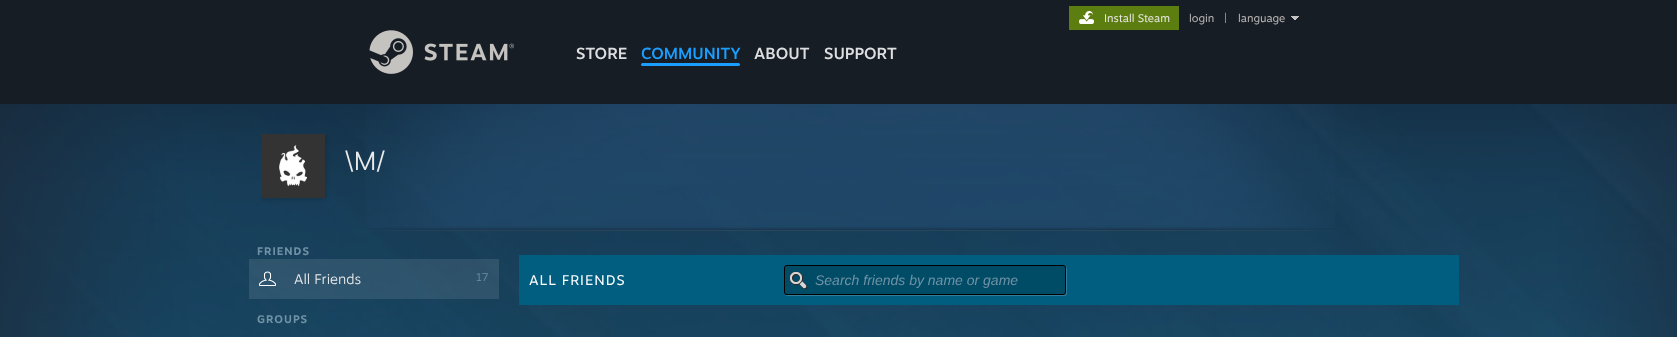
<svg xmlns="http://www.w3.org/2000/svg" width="1677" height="337">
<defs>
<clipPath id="clip1"><rect x="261" y="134" width="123" height="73"/></clipPath>
</defs>
<rect width="100%" height="100%" fill="#fff"/>
<image x="0" y="104" width="1677" height="233" href="media/1.png"/>
<rect width="1677" height="104" fill="#171d25"/>
<rect x="1069" y="6" width="110" height="24" fill="#5c7e10"/>
<image x="1079" y="11" width="15" height="13" href="media/2.png"/>
<text x="1104" y="22" style="font-family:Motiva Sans;font-size:11px;fill:#e5e4dc">Install Steam</text>
<text x="1189" y="22" style="font-family:Motiva Sans;font-size:11px;fill:#b8b6b4">login</text>
<text x="1224" y="22" style="font-family:Motiva Sans;font-size:11px;fill:#b8b6b4">|</text>
<text x="1238" y="22" style="font-family:Motiva Sans;font-size:11px;fill:#b8b6b4">language</text>
<image x="1291" y="16" width="8" height="4" href="media/3.png"/>
<image x="369" y="30" width="145" height="44" href="media/4.png"/>
<text x="576" y="59" style="font-family:Motiva Sans;font-size:16px;font-weight:500;fill:#dcdedf">STORE</text>
<text x="641" y="59" style="font-family:Motiva Sans;font-size:16px;font-weight:500;fill:#1a9fff">COMMUNITY</text>
<rect x="641" y="63" width="99" height="3" rx="1.5" fill="#1a9fff"/>
<text x="754" y="59" style="font-family:Motiva Sans;font-size:16px;font-weight:500;fill:#dcdedf">ABOUT</text>
<text x="824" y="59" style="font-family:Motiva Sans;font-size:16px;font-weight:500;fill:#dcdedf">SUPPORT</text>
<image x="365" y="104" width="970" height="127" href="media/5.png"/>
<g clip-path="url(#clip1)">
<rect x="261" y="134" width="64" height="64" fill="#00000040" filter="blur(2.5px)"/>
</g>
<image x="261" y="134" width="64" height="64" href="media/6.png"/>
<text x="345" y="170" style="font-family:Motiva Sans;font-size:26px;font-weight:300;fill:#ebebeb">\M/</text>
<text x="257" y="255" style="font-family:Motiva Sans;font-size:11px;font-weight:bold;letter-spacing:1px;fill:#7092a5">FRIENDS</text>
<rect x="249" y="259" width="250" height="40" fill="#ffffff1a"/>
<image x="259" y="271" width="17" height="15" href="media/7.png"/>
<text x="294" y="284" style="font-family:Motiva Sans;font-size:14px;font-weight:300;fill:#ebebeb">All Friends</text>
<text x="476" y="281" style="font-family:Motiva Sans;font-size:11px;font-weight:300;fill:#7092a5">17</text>
<text x="257" y="323" style="font-family:Motiva Sans;font-size:11px;font-weight:bold;letter-spacing:1px;fill:#7092a5">GROUPS</text>
<rect x="519" y="255" width="940" height="50" fill="#015e80"/>
<text x="529" y="285" style="font-family:Motiva Sans;font-size:14px;letter-spacing:1px;fill:#fff">ALL FRIENDS</text>
<path d="M785 295c1 0 2 1 3 1h276c2 0 3-1 3-3v-24c0-1-1-2-1-3v2v24c0 2-1 3-3 3h-276z" fill="#347e99"/>
<rect x="784" y="265" width="282" height="30" rx="3" fill="#00000033"/>
<image x="790" y="272" width="17" height="17" href="media/8.png"/>
<rect x="784.5" y="265.5" width="281" height="29" rx="2.5" fill="none" stroke="#000"/>
<text x="815" y="285" style="font-family:Liberation Sans;font-size:14px;font-style:italic;fill:#7092a5">Search friends by name or game</text>
</svg>
